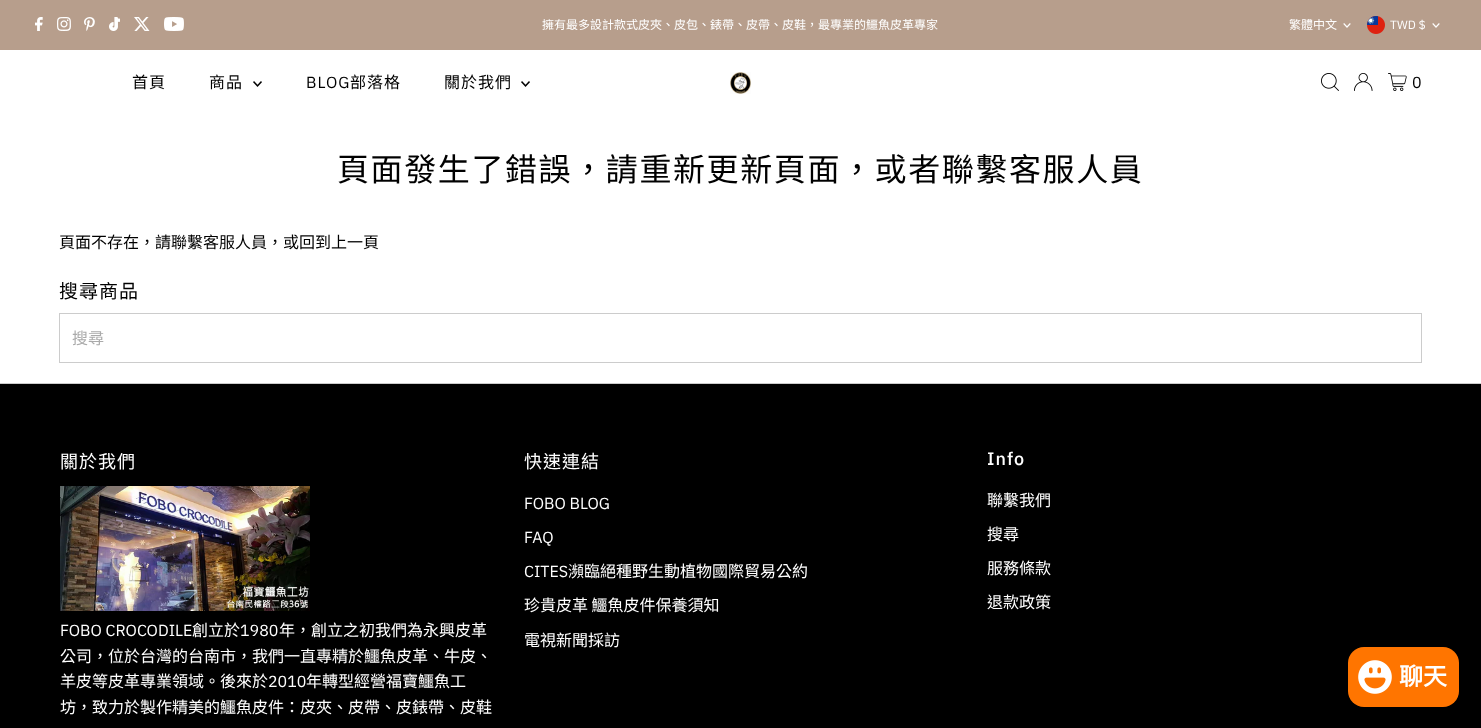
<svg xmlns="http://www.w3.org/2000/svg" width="1481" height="728">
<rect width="100%" height="100%" fill="#fff"/>
<rect width="1481" height="50" fill="#b79e8c"/>
<image x="35" y="17" width="8" height="14" href="media/1.png"/>
<image x="57" y="17" width="14" height="14" href="media/2.png"/>
<image x="84" y="17" width="11" height="14" href="media/3.png"/>
<image x="109" y="17" width="11" height="14" href="media/4.png"/>
<image x="134" y="17" width="16" height="14" href="media/5.png"/>
<image x="164" y="17" width="20" height="14" href="media/6.png"/>
<text x="542" y="29" style="font-family:Noto Sans CJK TC;font-size:12px;fill:#fff">擁有最多設計款式皮夾、皮包、錶帶、皮帶、皮鞋，最專業的鱷魚皮革專家</text>
<text x="1289" y="29" style="font-family:Noto Sans CJK TC;font-size:12px;fill:#fff">繁體中文</text>
<image x="1343" y="23" width="8" height="5" href="media/7.png"/>
<image x="1367" y="16" width="18" height="18" href="media/8.png"/>
<text x="1390" y="29" style="font-family:IBM Plex Sans;font-size:12px;fill:#fff">TWD $</text>
<image x="1432" y="23" width="8" height="5" href="media/7.png"/>
<text x="132" y="88" style="font-family:Noto Sans CJK TC;font-size:16px;letter-spacing:1px;fill:#000">首頁</text>
<text x="209" y="88" style="font-family:Noto Sans CJK TC;font-size:16px;letter-spacing:1px;fill:#000">商品</text>
<image x="253" y="81" width="9" height="6" href="media/9.png"/>
<text x="306" y="88" style="font-family:IBM Plex Sans;font-size:16px;letter-spacing:1px;fill:#000">BLOG</text>
<text x="350" y="88" style="font-family:Noto Sans CJK TC;font-size:16px;letter-spacing:1px;fill:#000">部落格</text>
<text x="444" y="88" style="font-family:Noto Sans CJK TC;font-size:16px;letter-spacing:1px;fill:#000">關於我們</text>
<image x="521" y="81" width="9" height="6" href="media/9.png"/>
<image x="730" y="72" width="21" height="22" href="media/10.png"/>
<image x="1321" y="73" width="18" height="18" href="media/11.png"/>
<image x="1354" y="73" width="19" height="18" href="media/12.png"/>
<image x="1388" y="73" width="19" height="18" href="media/13.png"/>
<text x="1412" y="88" style="font-family:IBM Plex Sans;font-size:16px;fill:#000">0</text>
<text x="337" y="181" style="font-family:Noto Sans CJK TC;font-size:32px;letter-spacing:1.6px;fill:#000">頁面發生了錯誤，請重新更新頁面，或者聯繫客服人員</text>
<text x="59" y="248" style="font-family:Noto Sans CJK TC;font-size:16px;fill:#000">頁面不存在，請聯繫客服人員，或回到上一頁</text>
<text x="59" y="298" style="font-family:Noto Sans CJK TC;font-size:19px;letter-spacing:1px;fill:#000">搜尋商品</text>
<rect x="59.5" y="313.5" width="1362" height="49" fill="none" stroke="#ccc"/>
<text x="72" y="344" style="font-family:Noto Sans CJK TC;font-size:16px;fill:#aaa">搜尋</text>
<rect y="384" width="1481" height="344" fill="#000"/>
<rect y="383" width="1481" height="1" fill="#ccc"/>
<text x="60" y="468" style="font-family:Noto Sans CJK TC;font-size:18px;letter-spacing:1px;fill:#fff">關於我們</text>
<image x="60" y="486" width="250" height="125" href="media/14.png"/>
<text x="60" y="636" style="font-family:IBM Plex Sans;font-size:16px;fill:#fff">FOBO CROCODILE</text>
<text x="192" y="636" style="font-family:Noto Sans CJK TC;font-size:16px;fill:#fff">創立於</text>
<text x="240" y="636" style="font-family:IBM Plex Sans;font-size:16px;fill:#fff">1980</text>
<text x="279" y="636" style="font-family:Noto Sans CJK TC;font-size:16px;fill:#fff">年，創立之初我們為永興皮革</text>
<text x="60" y="662" style="font-family:Noto Sans CJK TC;font-size:16px;fill:#fff">公司，位於台灣的台南市，我們一直專精於鱷魚皮革、牛皮、</text>
<text x="60" y="687" style="font-family:Noto Sans CJK TC;font-size:16px;fill:#fff">羊皮等皮革專業領域。後來於</text>
<text x="268" y="687" style="font-family:IBM Plex Sans;font-size:16px;fill:#fff">2010</text>
<text x="306" y="687" style="font-family:Noto Sans CJK TC;font-size:16px;fill:#fff">年轉型經營福寶鱷魚工</text>
<text x="60" y="713" style="font-family:Noto Sans CJK TC;font-size:16px;fill:#fff">坊，致力於製作精美的鱷魚皮件：皮夾、皮帶、皮錶帶、皮鞋</text>
<text x="524" y="468" style="font-family:Noto Sans CJK TC;font-size:18px;letter-spacing:1px;fill:#fff">快速連結</text>
<text x="524" y="509" style="font-family:IBM Plex Sans;font-size:16px;fill:#fff">FOBO BLOG</text>
<text x="524" y="543" style="font-family:IBM Plex Sans;font-size:16px;fill:#fff">FAQ</text>
<text x="524" y="577" style="font-family:IBM Plex Sans;font-size:16px;fill:#fff">CITES</text>
<text x="568" y="577" style="font-family:Noto Sans CJK TC;font-size:16px;fill:#fff">瀕臨絕種野生動植物國際貿易公約</text>
<text x="524" y="611" style="font-family:Noto Sans CJK TC;font-size:16px;fill:#fff">珍貴皮革 鱷魚皮件保養須知</text>
<text x="524" y="646" style="font-family:Noto Sans CJK TC;font-size:16px;fill:#fff">電視新聞採訪</text>
<text x="987" y="465" style="font-family:IBM Plex Sans;font-size:18px;font-weight:500;letter-spacing:1px;fill:#fff">Info</text>
<text x="987" y="506" style="font-family:Noto Sans CJK TC;font-size:16px;fill:#fff">聯繫我們</text>
<text x="987" y="540" style="font-family:Noto Sans CJK TC;font-size:16px;fill:#fff">搜尋</text>
<text x="987" y="574" style="font-family:Noto Sans CJK TC;font-size:16px;fill:#fff">服務條款</text>
<text x="987" y="608" style="font-family:Noto Sans CJK TC;font-size:16px;fill:#fff">退款政策</text>
<rect x="1348" y="647" width="111" height="60" rx="16" fill="#ff7500"/>
<image x="1358" y="660" width="34" height="34" href="media/15.png"/>
<text x="1399" y="685" style="font-family:Noto Sans CJK TC;font-size:24px;font-weight:bold;fill:#fff">聊天</text>
</svg>
